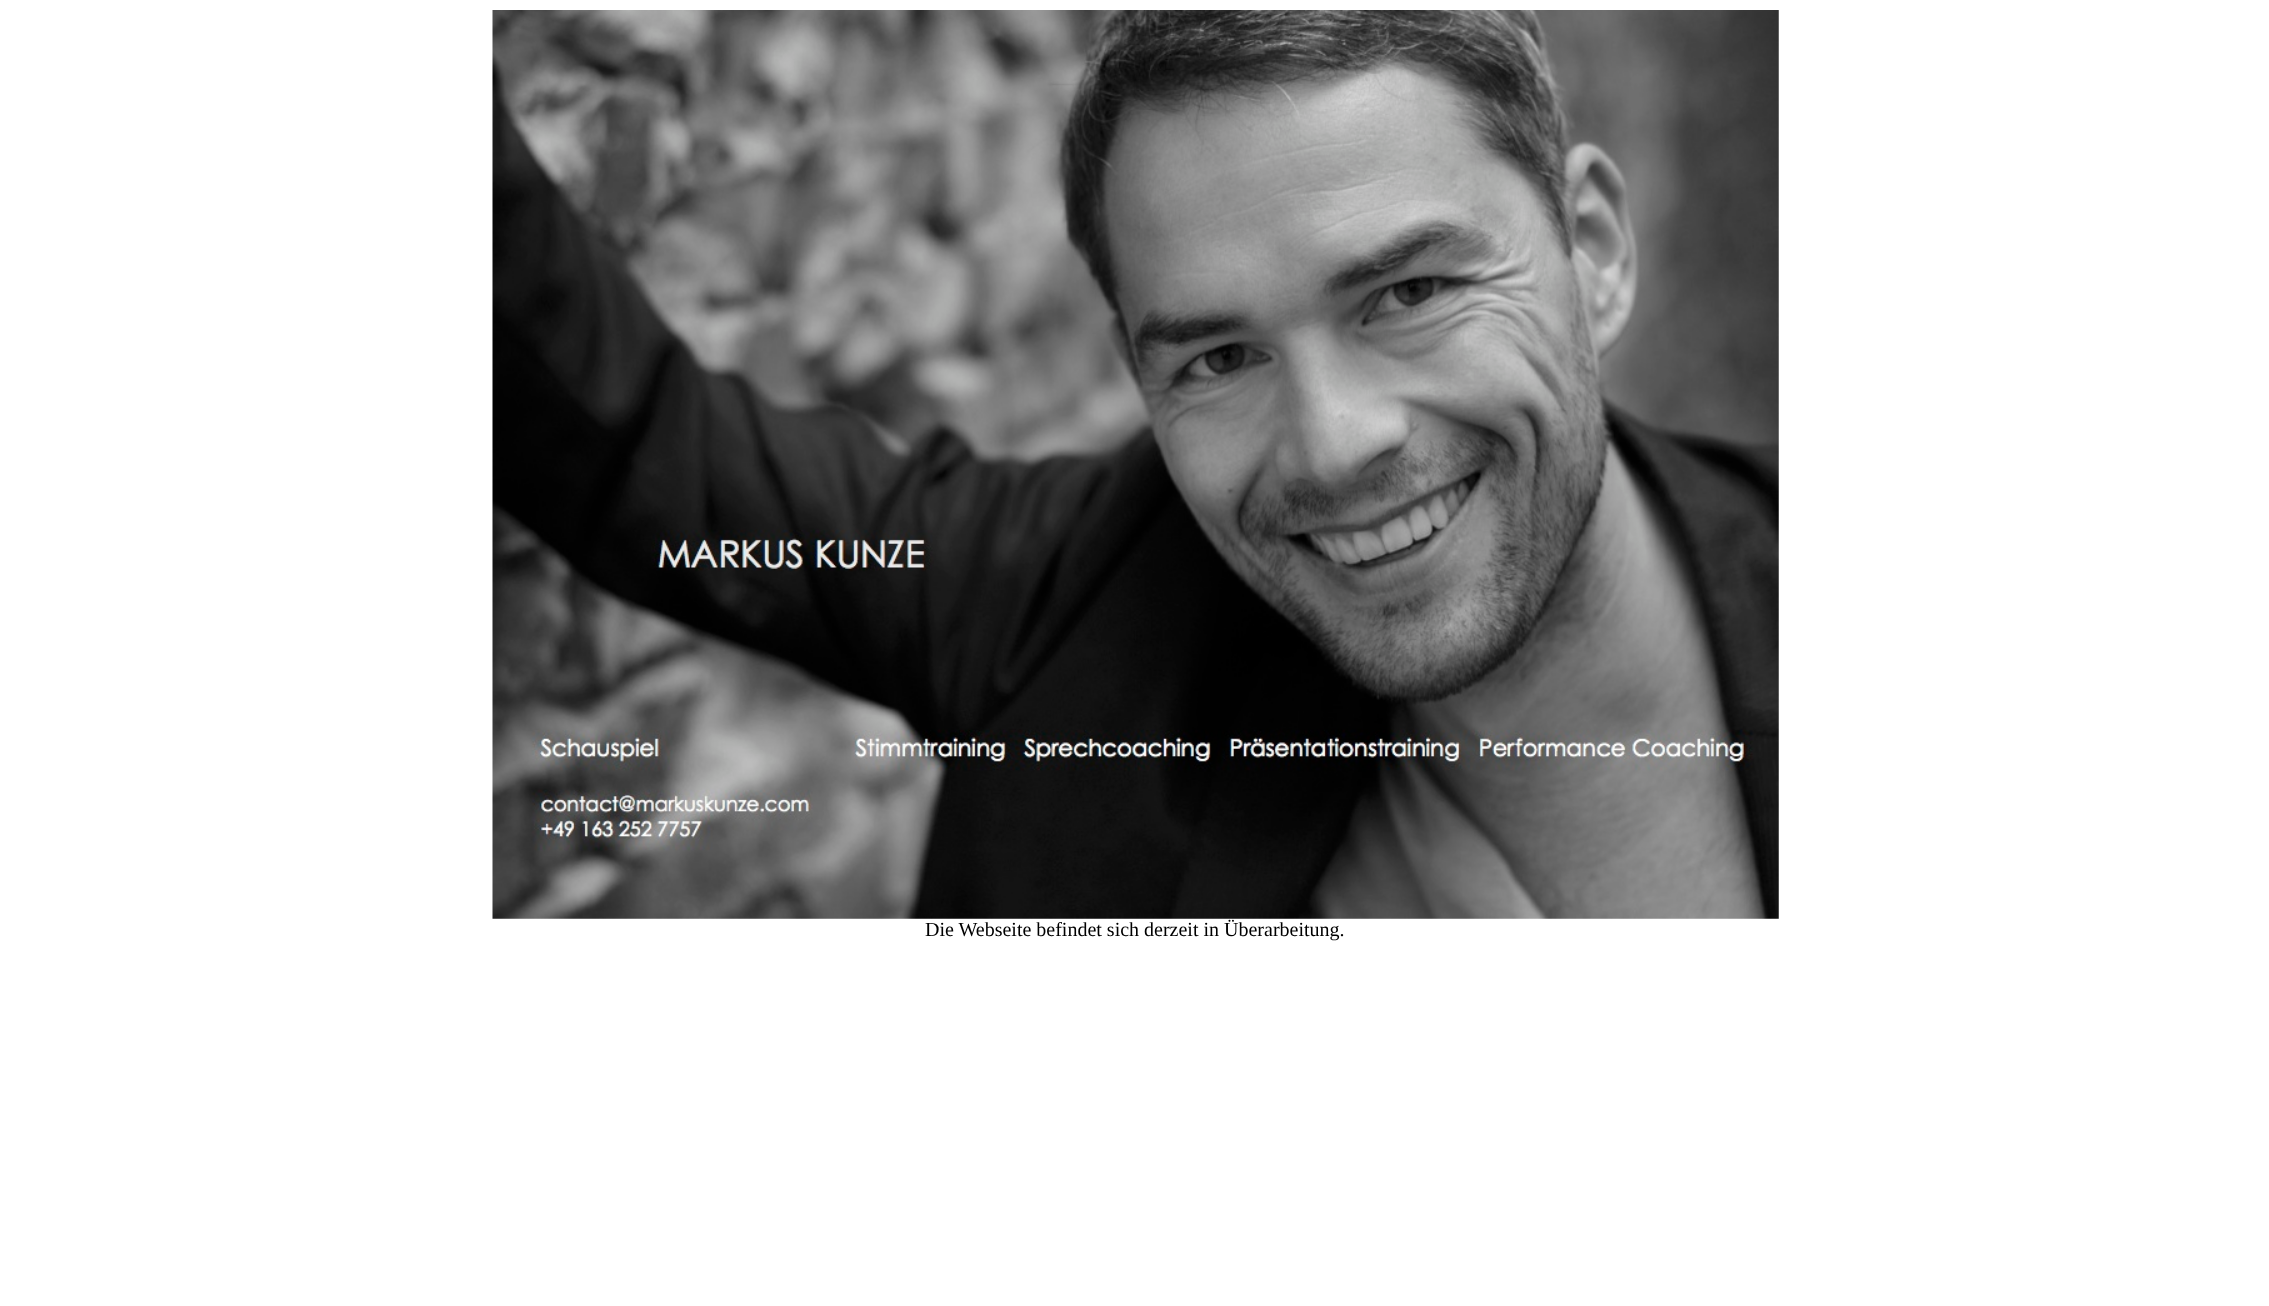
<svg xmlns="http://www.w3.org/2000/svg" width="2269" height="1306">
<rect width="100%" height="100%" fill="#fff"/>
<image x="492" y="10" width="1287" height="909" href="media/1.png"/>
<text x="925" y="936" style="font-family:Liberation Serif;font-size:20px;fill:#000">Die Webseite befindet sich derzeit in Überarbeitung.</text>
</svg>
